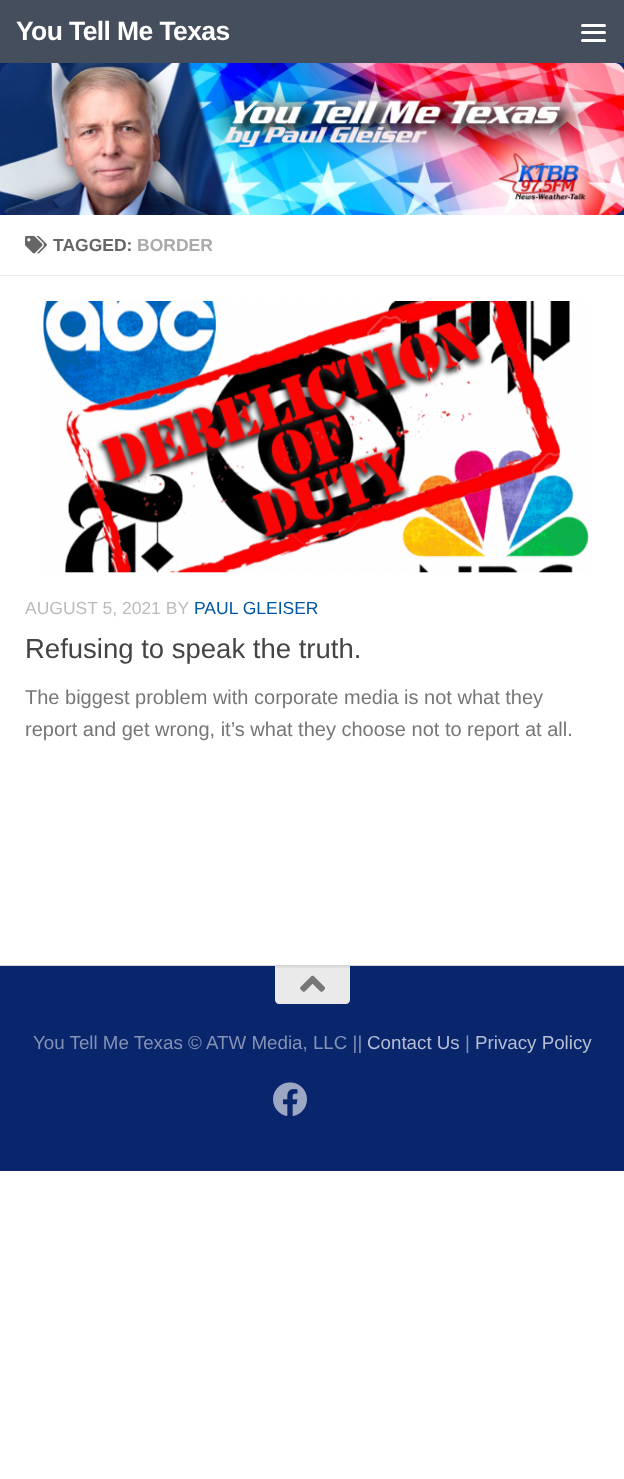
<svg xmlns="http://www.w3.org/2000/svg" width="624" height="1479">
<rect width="100%" height="100%" fill="#fff"/>
<rect y="965" width="624" height="1" fill="#eaeaea"/>
<rect y="216" width="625" height="750" fill="#0000001a" filter="blur(0.5px)"/>
<rect y="63" width="624" height="152" fill="#09256b"/>
<rect width="624" height="63" fill="#454e5c"/>
<text x="16" y="40" style="font-family:Liberation Sans;font-size:26.5px;font-weight:bold;letter-spacing:-0.6px;fill:#fff">You Tell Me Texas</text>
<rect x="581" y="24" width="25" height="3" rx="1.5" fill="#fff"/>
<rect x="581" y="31" width="25" height="3" rx="1.5" fill="#fff"/>
<rect x="581" y="39" width="25" height="3" rx="1.5" fill="#fff"/>
<image x="0" y="63" width="624" height="152" href="media/1.png"/>
<rect y="215" width="624" height="750" fill="#fff"/>
<rect y="275" width="624" height="1" fill="#eee"/>
<image x="25" y="235" width="22" height="19" href="media/2.png"/>
<text x="53" y="251" style="font-family:Liberation Sans;font-size:17.5px;font-weight:bold;fill:#666">TAGGED:</text>
<text x="137" y="251" style="font-family:Liberation Sans;font-size:17.5px;font-weight:bold;fill:#aaa">BORDER</text>
<image x="43" y="301" width="546" height="272" href="media/3.png"/>
<text x="25" y="614" style="font-family:Liberation Sans;font-size:17.5px;fill:#bbb">AUGUST 5, 2021 BY</text>
<text x="194" y="614" style="font-family:Liberation Sans;font-size:17.5px;fill:#0055a5">PAUL GLEISER</text>
<text x="25" y="658" style="font-family:Liberation Sans;font-size:27.5px;fill:#444">Refusing to speak the truth.</text>
<text x="25" y="704" style="font-family:Liberation Sans;font-size:20px;fill:#767676">The biggest problem with corporate media is not what they</text>
<text x="25" y="736" style="font-family:Liberation Sans;font-size:20px;fill:#767676">report and get wrong, it’s what they choose not to report at all.</text>
<rect y="966" width="624" height="205" fill="#09256b"/>
<path d="M275 966h75v34c0 2-2 4-4 4h-67c-2 0-4-2-4-4z" fill="#eaeaea"/>
<rect x="275" y="966" width="75" height="2" fill="#dedede"/>
<image x="300" y="975" width="25" height="17" href="media/4.png"/>
<text x="33" y="1049" style="font-family:Liberation Sans;font-size:18.75px;fill:#8492b5">You Tell Me Texas © ATW Media, LLC ||</text>
<text x="367" y="1049" style="font-family:Liberation Sans;font-size:18.75px;fill:#b5bed3">Contact Us</text>
<text x="465" y="1049" style="font-family:Liberation Sans;font-size:18.75px;fill:#8492b5">|</text>
<text x="475" y="1049" style="font-family:Liberation Sans;font-size:18.75px;fill:#b5bed3">Privacy Policy</text>
<image x="273" y="1082" width="34" height="34" href="media/5.png"/>
</svg>
